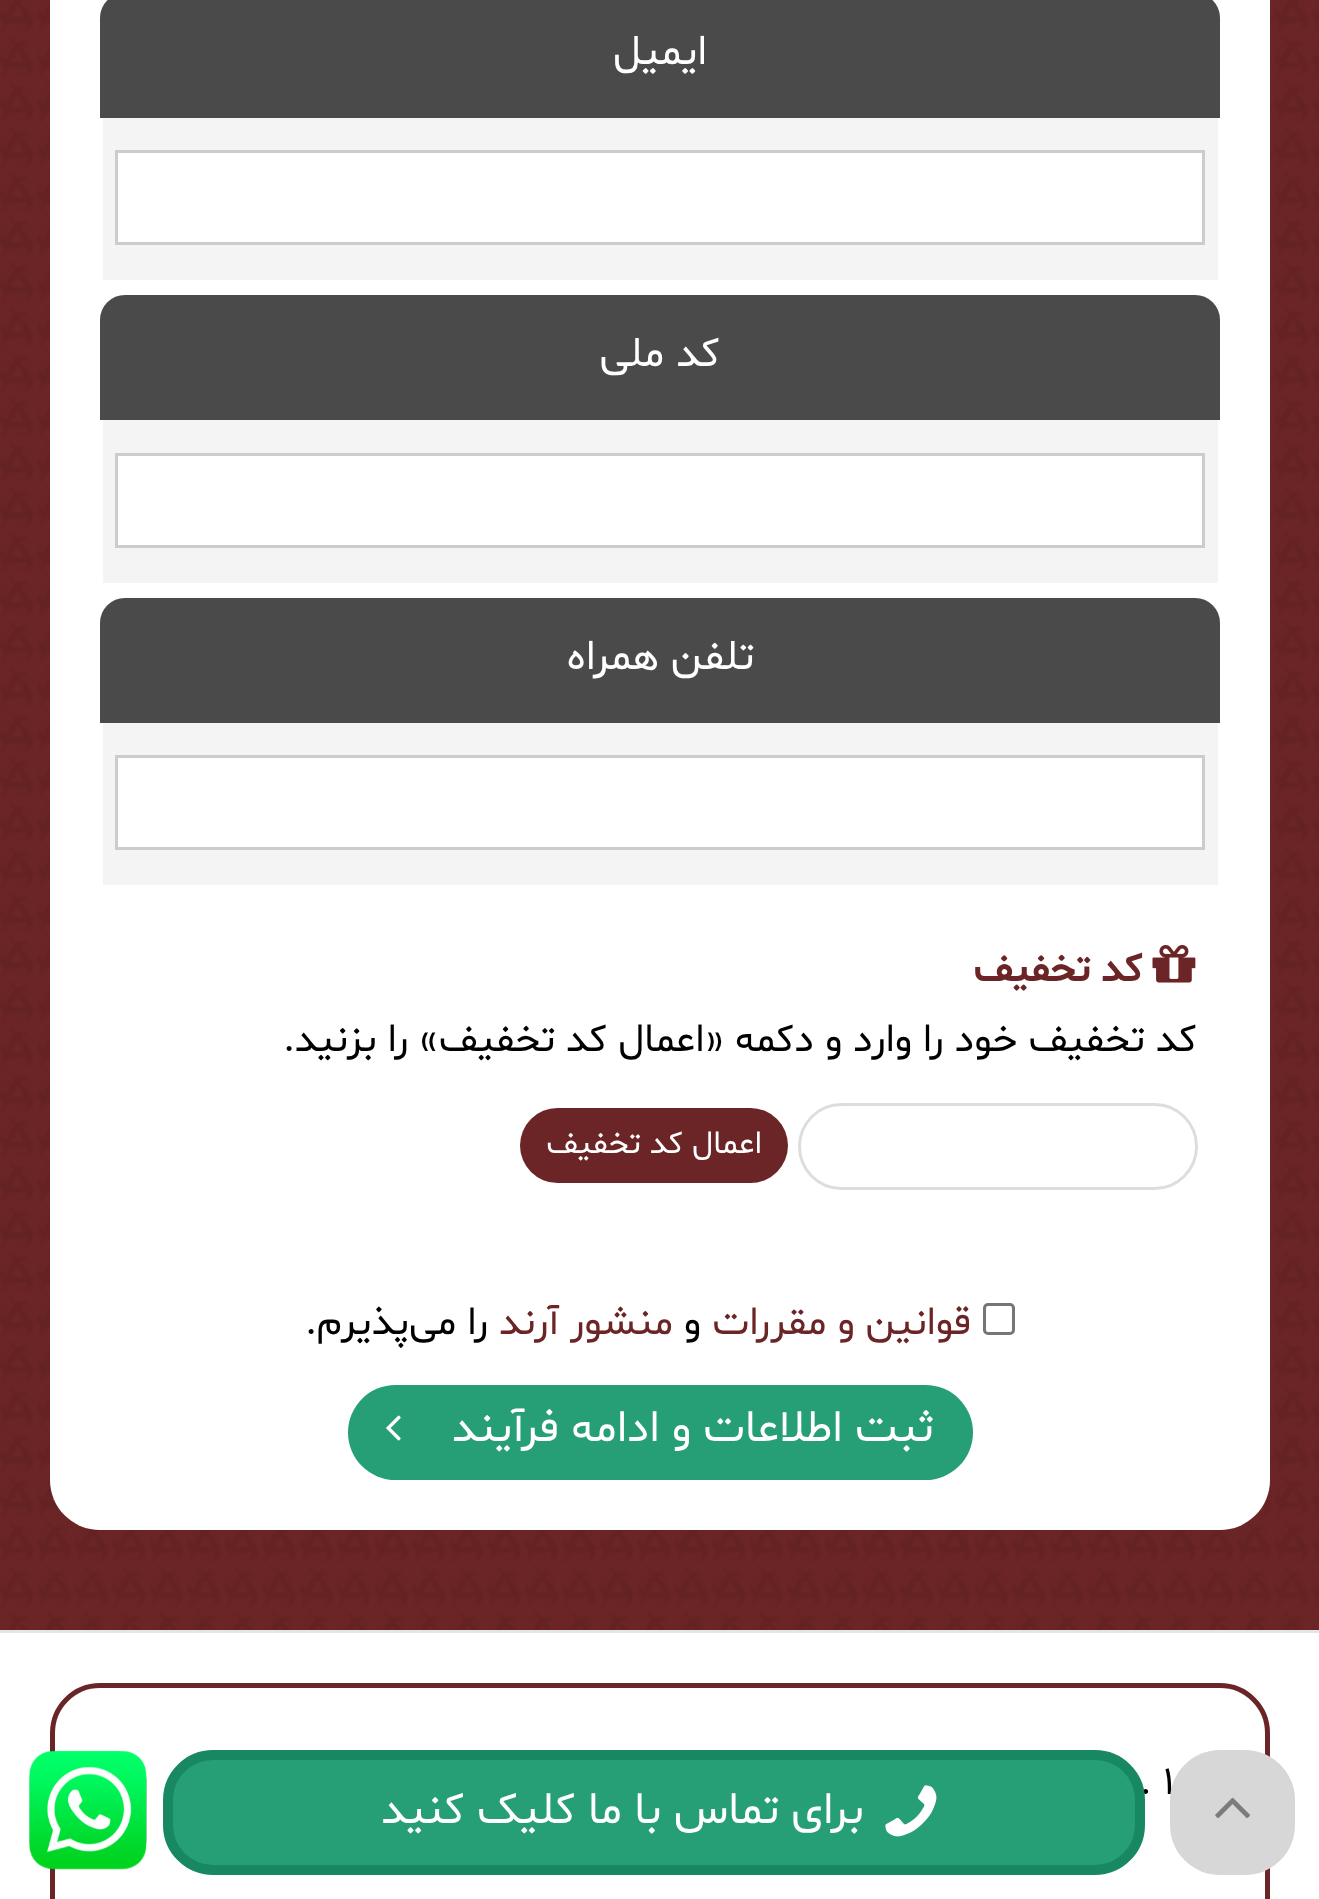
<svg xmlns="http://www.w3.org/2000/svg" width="1319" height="1899">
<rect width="100%" height="100%" fill="#fff"/>
<rect width="1319" height="1630" fill="#6c2526"/>
<image x="0" y="0" width="1319" height="1630" href="media/1.png"/>
<rect y="1630" width="1319" height="3" fill="#e5e5e5"/>
<rect x="50" y="-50" width="1220" height="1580" rx="50" fill="#fff"/>
<path d="M125-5.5h1070c13 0 23.5 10.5 23.5 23.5v98.5h-1117v-98.5c0-13 10.5-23.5 23.5-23.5z" fill="#4b4a4a" stroke="#4b4a4a" stroke-width="3"/>
<text x="707" y="64" style="font-family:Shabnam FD;font-size:42.5px;direction:rtl;fill:#fff">ایمیل</text>
<rect x="103" y="118" width="1115" height="162" fill="#f4f4f4"/>
<rect x="116.5" y="151.5" width="1087" height="92" fill="#fff" stroke="#ccc" stroke-width="3"/>
<path d="M125 296.5h1070c13 0 23.5 10.5 23.5 23.5v98.5h-1117v-98.5c0-13 10.5-23.5 23.5-23.5z" fill="#4b4a4a" stroke="#4b4a4a" stroke-width="3"/>
<text x="720" y="366" style="font-family:Shabnam FD;font-size:42.5px;direction:rtl;fill:#fff">کد ملی</text>
<rect x="103" y="420" width="1115" height="163" fill="#f4f4f4"/>
<rect x="116.5" y="454.5" width="1087" height="92" fill="#fff" stroke="#ccc" stroke-width="3"/>
<path d="M125 599.5h1070c13 0 23.5 10.5 23.5 23.5v98.5h-1117v-98.5c0-13 10.5-23.5 23.5-23.5z" fill="#4b4a4a" stroke="#4b4a4a" stroke-width="3"/>
<text x="754" y="669" style="font-family:Shabnam FD;font-size:42.5px;direction:rtl;fill:#fff">تلفن همراه</text>
<rect x="103" y="723" width="1115" height="162" fill="#f4f4f4"/>
<rect x="116.5" y="756.5" width="1087" height="92" fill="#fff" stroke="#ccc" stroke-width="3"/>
<image x="1152" y="945" width="44" height="38" href="media/2.png"/>
<text x="1143" y="981" style="font-family:Shabnam FD;font-size:40px;font-weight:bold;direction:rtl;fill:#6c2526">کد تخفیف</text>
<text x="1197" y="1051" style="font-family:Shabnam FD;font-size:40px;direction:rtl;fill:#000">کد تخفیف خود را وارد و دکمه «اعمال کد تخفیف» را بزنید.</text>
<rect x="799.5" y="1104.5" width="397" height="84" rx="42" fill="none" stroke="#ddd" stroke-width="3"/>
<rect x="520" y="1108" width="268" height="75" rx="37.5" fill="#6c2526"/>
<text x="762" y="1153" style="font-family:Shabnam FD;font-size:32.5px;direction:rtl;fill:#fff">اعمال کد تخفیف</text>
<rect x="984.5" y="1304.5" width="29" height="29" rx="3.5" fill="none" stroke="#767676" stroke-width="3"/>
<text x="971" y="1334" style="font-family:Shabnam FD;font-size:40px;direction:rtl;fill:#6c2526">قوانین و مقررات</text>
<text x="701" y="1334" style="font-family:Shabnam FD;font-size:40px;direction:rtl;fill:#000">و</text>
<text x="673" y="1334" style="font-family:Shabnam FD;font-size:40px;direction:rtl;fill:#6c2526">منشور آرند</text>
<text x="488" y="1334" style="font-family:Shabnam FD;font-size:40px;direction:rtl;fill:#000">را می‌پذیرم.</text>
<rect x="348" y="1385" width="625" height="95" rx="47.5" fill="#269e76"/>
<text x="934" y="1441" style="font-family:Shabnam FD;font-size:45px;direction:rtl;fill:#fff">ثبت اطلاعات و ادامه فرآیند</text>
<image x="386" y="1415" width="15" height="26" href="media/3.png"/>
<rect x="52.5" y="1685.5" width="1215" height="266" rx="47.5" fill="none" stroke="#6c2526" stroke-width="5"/>
<text x="1140" y="1794" style="font-family:Shabnam FD;font-size:40px;fill:#000">. 1</text>
<rect x="1170" y="1750" width="125" height="125" rx="50" fill="#d7d7d7"/>
<image x="1215" y="1797" width="35" height="21" href="media/4.png"/>
<rect x="168" y="1755" width="972" height="115" rx="45" fill="#269e76" stroke="#188862" stroke-width="10"/>
<image x="885" y="1785" width="52" height="52" href="media/5.png"/>
<text x="864" y="1823" style="font-family:Shabnam FD;font-size:45px;direction:rtl;fill:#fff">برای تماس با ما کلیک کنید</text>
<image x="29" y="1750" width="118" height="120" href="media/6.png"/>
</svg>
